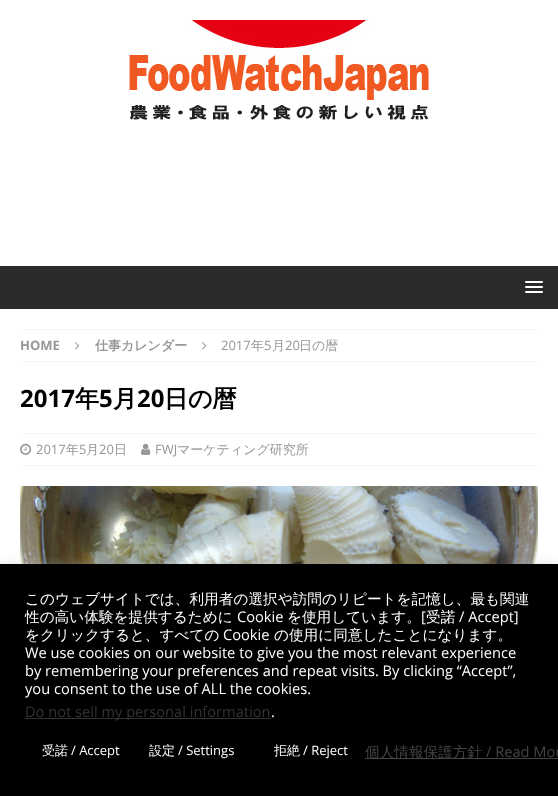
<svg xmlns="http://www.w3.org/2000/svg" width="558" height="796">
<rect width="100%" height="100%" fill="#fff"/>
<image x="129" y="20" width="300" height="100" href="media/1.png"/>
<rect y="266" width="558" height="43" fill="#2a2a2a"/>
<rect x="525" y="281" width="18" height="2" rx="1" fill="#fff"/>
<rect x="525" y="286" width="18" height="2" rx="1" fill="#fff"/>
<rect x="525" y="291" width="18" height="2" rx="1" fill="#fff"/>
<path d="M20 329.5h518" fill="none" stroke="#ebebeb" stroke-dasharray="1 1"/>
<path d="M20 361.5h518" fill="none" stroke="#ebebeb" stroke-dasharray="1 1"/>
<text x="20" y="350" style="font-family:Open Sans;font-size:13px;font-weight:bold;fill:#979797">HOME</text>
<image x="75" y="342" width="5" height="8" href="media/2.png"/>
<text x="95" y="350" style="font-family:WenQuanYi Zen Hei;font-size:13px;font-weight:bold;fill:#979797">仕事カレンダー</text>
<image x="202" y="342" width="5" height="8" href="media/2.png"/>
<text x="221" y="350" style="font-family:Open Sans;font-size:13px;fill:#979797">2017</text>
<text x="251" y="350" style="font-family:WenQuanYi Zen Hei;font-size:13px;font-weight:500;fill:#979797">年</text>
<text x="264" y="350" style="font-family:Open Sans;font-size:13px;fill:#979797">5</text>
<text x="272" y="350" style="font-family:WenQuanYi Zen Hei;font-size:13px;font-weight:500;fill:#979797">月</text>
<text x="285" y="350" style="font-family:Open Sans;font-size:13px;fill:#979797">20</text>
<text x="299" y="350" style="font-family:WenQuanYi Zen Hei;font-size:13px;font-weight:500;fill:#979797">日の暦</text>
<text x="20" y="407" style="font-family:Open Sans;font-size:24px;font-weight:bold;fill:#000">2017</text>
<text x="75" y="407" style="font-family:WenQuanYi Zen Hei;font-size:24px;font-weight:bold;fill:#000">年</text>
<text x="99" y="407" style="font-family:Open Sans;font-size:24px;font-weight:bold;fill:#000">5</text>
<text x="113" y="407" style="font-family:WenQuanYi Zen Hei;font-size:24px;font-weight:bold;fill:#000">月</text>
<text x="137" y="407" style="font-family:Open Sans;font-size:24px;font-weight:bold;fill:#000">20</text>
<text x="164" y="407" style="font-family:WenQuanYi Zen Hei;font-size:24px;font-weight:bold;fill:#000">日の暦</text>
<path d="M20 433.5h518" fill="none" stroke="#ebebeb" stroke-dasharray="1 1"/>
<path d="M20 465.5h518" fill="none" stroke="#ebebeb" stroke-dasharray="1 1"/>
<image x="20" y="443" width="12" height="12" href="media/3.png"/>
<text x="36" y="454" style="font-family:Open Sans;font-size:13px;fill:#979797">2017</text>
<text x="66" y="454" style="font-family:WenQuanYi Zen Hei;font-size:13px;font-weight:500;fill:#979797">年</text>
<text x="79" y="454" style="font-family:Open Sans;font-size:13px;fill:#979797">5</text>
<text x="86" y="454" style="font-family:WenQuanYi Zen Hei;font-size:13px;font-weight:500;fill:#979797">月</text>
<text x="99" y="454" style="font-family:Open Sans;font-size:13px;fill:#979797">20</text>
<text x="114" y="454" style="font-family:WenQuanYi Zen Hei;font-size:13px;font-weight:500;fill:#979797">日</text>
<image x="141" y="443" width="10" height="12" href="media/4.png"/>
<text x="155" y="454" style="font-family:Open Sans;font-size:13px;fill:#979797">FWJ</text>
<text x="177" y="454" style="font-family:WenQuanYi Zen Hei;font-size:13px;font-weight:500;fill:#979797">マーケティング研究所</text>
<image x="20" y="486" width="518" height="78" href="media/5.png"/>
<rect y="563" width="558" height="232" fill="#acabab4d" filter="blur(5px)"/>
<rect y="564" width="558" height="232" fill="#000"/>
<text x="25" y="604" style="font-family:WenQuanYi Zen Hei;font-size:14.65px;font-weight:500;fill:#fff">このウェブサイトでは、利用者の選択や訪問のリピートを記憶し、最も関連</text>
<text x="25" y="622" style="font-family:WenQuanYi Zen Hei;font-size:14.65px;font-weight:500;fill:#fff">性の高い体験を提供するために</text>
<text x="237" y="622" style="font-family:Open Sans;font-size:14.65px;fill:#fff">Cookie</text>
<text x="287" y="622" style="font-family:WenQuanYi Zen Hei;font-size:14.65px;font-weight:500;fill:#fff">を使用しています。</text>
<text x="421" y="622" style="font-family:Open Sans;font-size:14.65px;fill:#fff">[</text>
<text x="426" y="622" style="font-family:WenQuanYi Zen Hei;font-size:14.65px;font-weight:500;fill:#fff">受諾</text>
<text x="459" y="622" style="font-family:Open Sans;font-size:14.65px;fill:#fff">/ Accept]</text>
<text x="25" y="640" style="font-family:WenQuanYi Zen Hei;font-size:14.65px;font-weight:500;fill:#fff">をクリックすると、すべての</text>
<text x="223" y="640" style="font-family:Open Sans;font-size:14.65px;fill:#fff">Cookie</text>
<text x="274" y="640" style="font-family:WenQuanYi Zen Hei;font-size:14.65px;font-weight:500;fill:#fff">の使用に同意したことになります。</text>
<text x="25" y="658" style="font-family:Open Sans;font-size:14.65px;fill:#fff">We use cookies on our website to give you the most relevant experience</text>
<text x="25" y="676" style="font-family:Open Sans;font-size:14.65px;fill:#fff">by remembering your preferences and repeat visits. By clicking “Accept”,</text>
<text x="25" y="694" style="font-family:Open Sans;font-size:14.65px;fill:#fff">you consent to the use of ALL the cookies.</text>
<rect x="25" y="718" width="246" height="1" fill="#333"/>
<text x="25" y="717" style="font-family:Open Sans;font-size:14.65px;fill:#333">Do not sell my personal information</text>
<text x="271" y="717" style="font-family:Open Sans;font-size:14.65px;fill:#fff">.</text>
<text x="42" y="755" style="font-family:WenQuanYi Zen Hei;font-size:13px;font-weight:500;fill:#fff">受諾</text>
<text x="71" y="755" style="font-family:Open Sans;font-size:13px;fill:#fff">/ Accept</text>
<text x="149" y="755" style="font-family:WenQuanYi Zen Hei;font-size:13px;font-weight:500;fill:#fff">設定</text>
<text x="178" y="755" style="font-family:Open Sans;font-size:13px;fill:#fff">/ Settings</text>
<text x="274" y="755" style="font-family:WenQuanYi Zen Hei;font-size:13px;font-weight:500;fill:#fff">拒絶</text>
<text x="303" y="755" style="font-family:Open Sans;font-size:13px;fill:#fff">/ Reject</text>
<rect x="365" y="758" width="193" height="1" fill="#444"/>
<text x="365" y="757" style="font-family:WenQuanYi Zen Hei;font-size:14.65px;font-weight:500;fill:#444">個人情報保護方針</text>
<text x="486" y="757" style="font-family:Open Sans;font-size:14.65px;fill:#444">/ Read Mor</text>
</svg>
